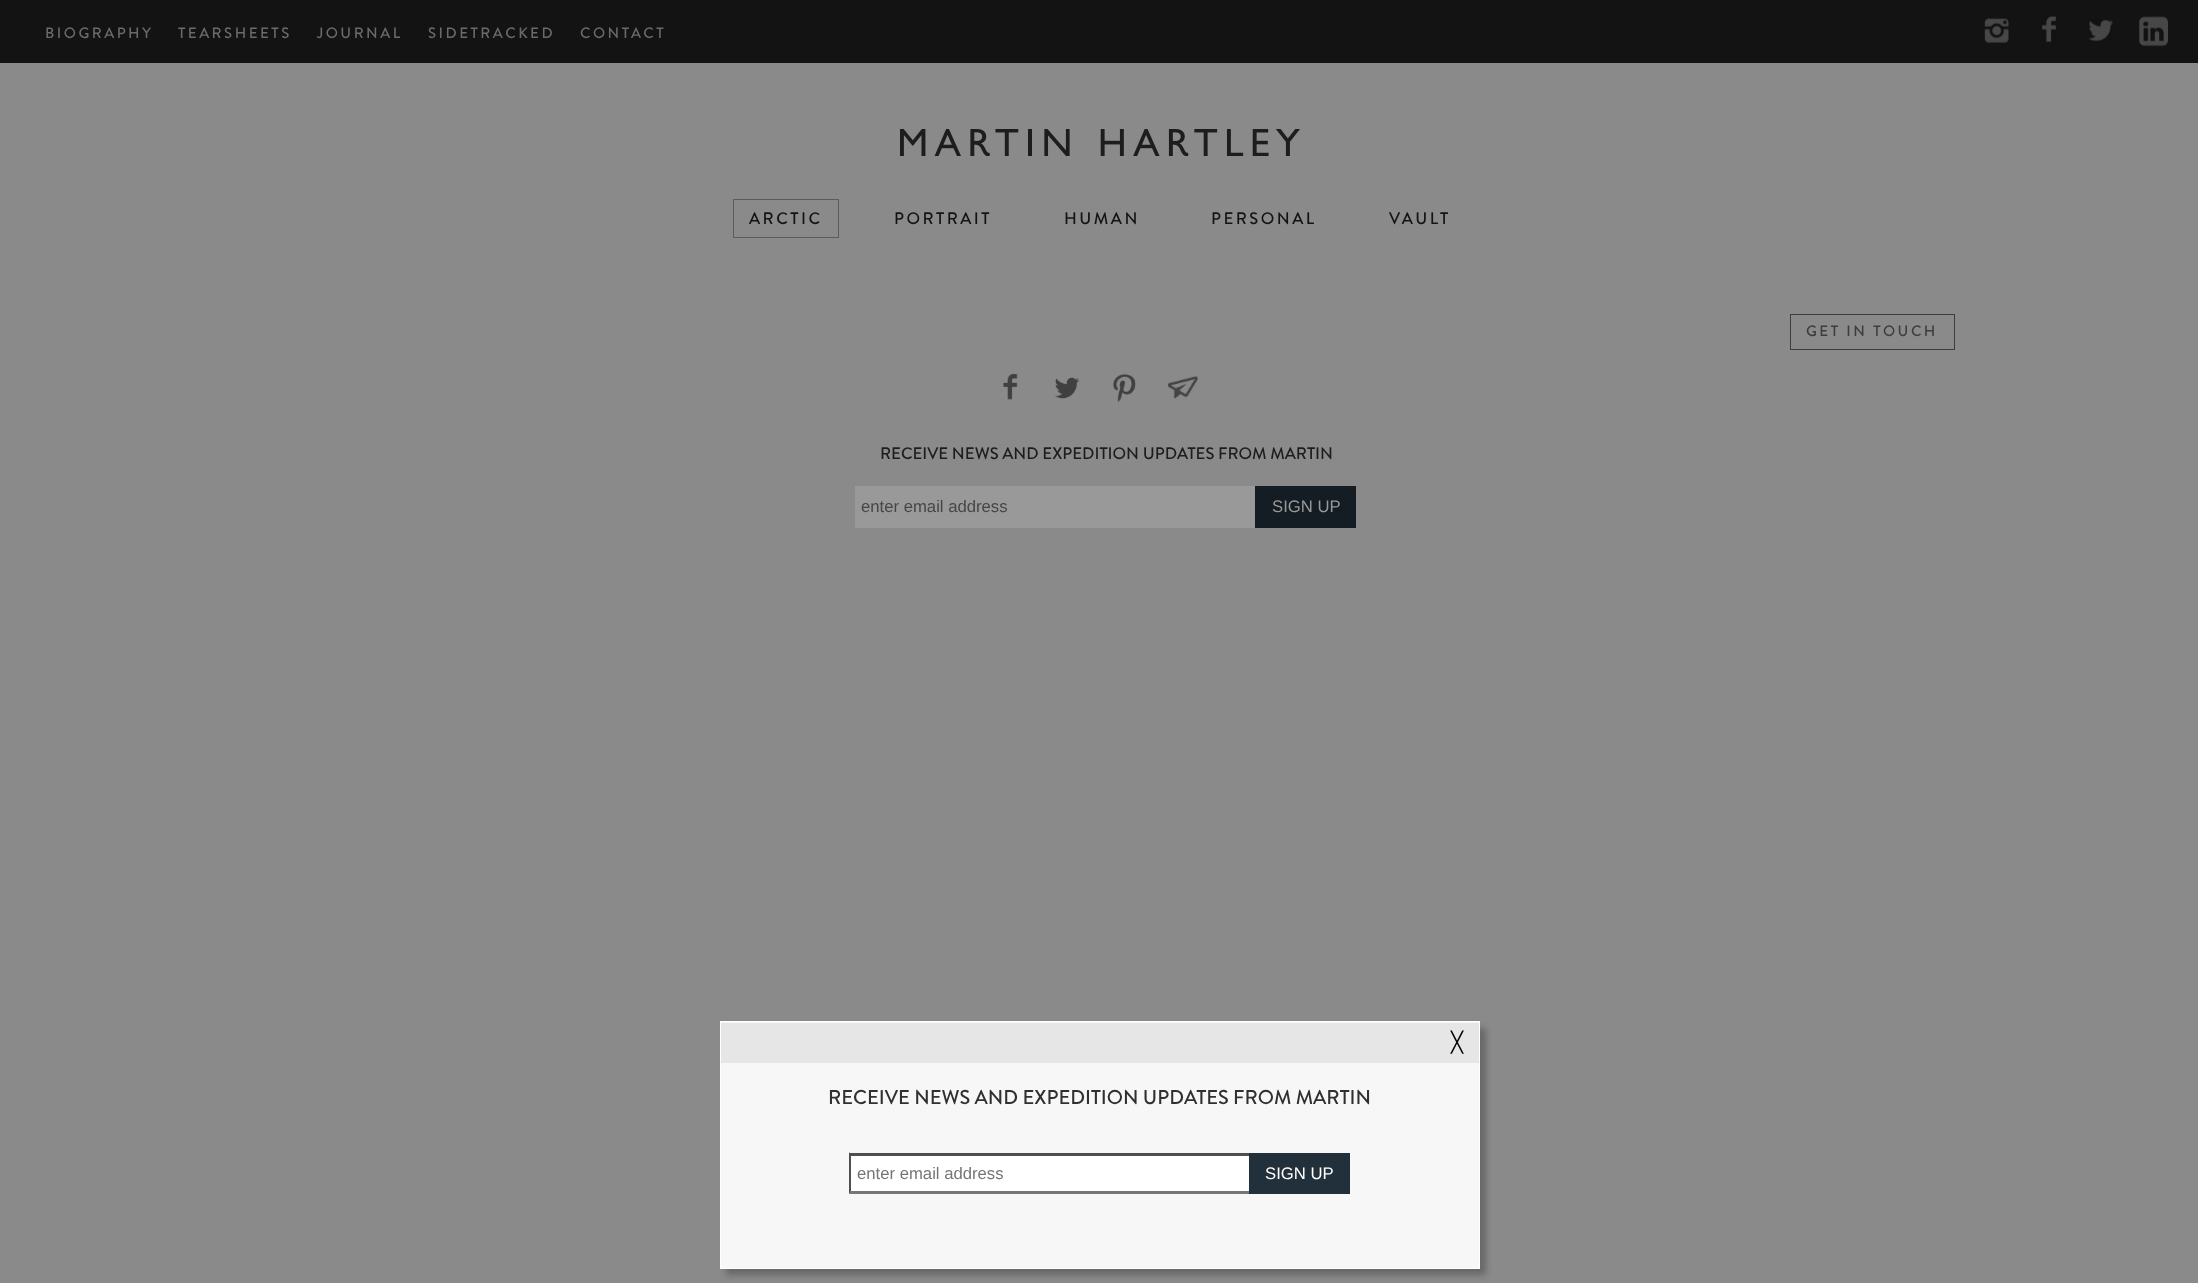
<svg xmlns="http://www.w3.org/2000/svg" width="2198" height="1283">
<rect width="100%" height="100%" fill="#131313"/>
<text x="45" y="38" style="font-family:Brandon Grotesque;font-size:15px;font-weight:500;letter-spacing:2.5px;fill:#6a6a6a">BIOGRAPHY</text>
<text x="178" y="38" style="font-family:Brandon Grotesque;font-size:15px;font-weight:500;letter-spacing:2.5px;fill:#6a6a6a">TEARSHEETS</text>
<text x="317" y="38" style="font-family:Brandon Grotesque;font-size:15px;font-weight:500;letter-spacing:2.5px;fill:#6a6a6a">JOURNAL</text>
<text x="428" y="38" style="font-family:Brandon Grotesque;font-size:15px;font-weight:500;letter-spacing:2.5px;fill:#6a6a6a">SIDETRACKED</text>
<text x="580" y="38" style="font-family:Brandon Grotesque;font-size:15px;font-weight:500;letter-spacing:2.5px;fill:#6a6a6a">CONTACT</text>
<image x="1984" y="18" width="25" height="25" href="media/1.png"/>
<image x="2042" y="16" width="14" height="26" href="media/2.png"/>
<image x="2088" y="19" width="25" height="23" href="media/3.png"/>
<image x="2139" y="16" width="29" height="31" href="media/4.png"/>
<rect y="63" width="2198" height="1220" fill="#8a8a8a"/>
<image x="900" y="129" width="400" height="27" href="media/5.png"/>
<rect x="733.5" y="199.5" width="105" height="38" fill="none" stroke="#5c5c5c"/>
<text x="749" y="224" style="font-family:Brandon Grotesque;font-size:16.7px;font-weight:500;letter-spacing:2.5px;fill:#131313">ARCTIC</text>
<text x="894" y="224" style="font-family:Brandon Grotesque;font-size:16.7px;font-weight:500;letter-spacing:2.5px;fill:#131313">PORTRAIT</text>
<text x="1064" y="224" style="font-family:Brandon Grotesque;font-size:16.7px;font-weight:500;letter-spacing:2.5px;fill:#131313">HUMAN</text>
<text x="1211" y="224" style="font-family:Brandon Grotesque;font-size:16.7px;font-weight:500;letter-spacing:2.5px;fill:#131313">PERSONAL</text>
<text x="1389" y="224" style="font-family:Brandon Grotesque;font-size:16.7px;font-weight:500;letter-spacing:2.5px;fill:#131313">VAULT</text>
<rect x="1790.5" y="314.5" width="164" height="35" fill="none" stroke="#3d3d3d"/>
<text x="1806" y="336" style="font-family:Brandon Grotesque;font-size:15px;font-weight:500;letter-spacing:2.5px;fill:#3d3d3d">GET IN TOUCH</text>
<image x="1003" y="373" width="15" height="27" href="media/6.png"/>
<image x="1055" y="377" width="25" height="22" href="media/7.png"/>
<image x="1113" y="374" width="23" height="28" href="media/8.png"/>
<image x="1168" y="376" width="30" height="23" href="media/9.png"/>
<text x="880" y="459" style="font-family:Brandon Grotesque;font-size:16.7px;font-weight:500;fill:#1d1d1d">RECEIVE NEWS AND EXPEDITION UPDATES FROM MARTIN</text>
<rect x="855" y="486" width="400" height="42" fill="#999"/>
<text x="861" y="512" style="font-family:Liberation Sans;font-size:16.7px;fill:#464646">enter email address</text>
<rect x="1255" y="486" width="101" height="42" fill="#141d23"/>
<text x="1272" y="512" style="font-family:Liberation Sans;font-size:16.7px;fill:#999">SIGN UP</text>
<rect x="726" y="1028" width="760" height="247" fill="#00000040" filter="blur(3px)"/>
<rect x="720.5" y="1021.5" width="759" height="247" fill="#f7f7f7" stroke="#fff"/>
<rect x="721" y="1023" width="758" height="40" fill="#e6e6e6"/>
<text x="1451" y="1049" style="font-family:DejaVu Sans;font-size:20px;fill:#000">╳</text>
<text x="828" y="1104" style="font-family:Brandon Grotesque;font-size:20px;font-weight:500;fill:#303030">RECEIVE NEWS AND EXPEDITION UPDATES FROM MARTIN</text>
<rect x="849" y="1156" width="400" height="38" fill="#fff"/>
<rect x="849" y="1153" width="400" height="3" fill="#4f4f4f"/>
<path d="M1249 1194h-400l2-3h398z" fill="#767676"/>
<path d="M849 1194v-42l2 3v36z" fill="#4f4f4f"/>
<text x="857" y="1179" style="font-family:Liberation Sans;font-size:16.7px;fill:#757575">enter email address</text>
<rect x="1249" y="1153" width="101" height="41" fill="#21303a"/>
<text x="1265" y="1179" style="font-family:Liberation Sans;font-size:16.7px;fill:#fff">SIGN UP</text>
</svg>
